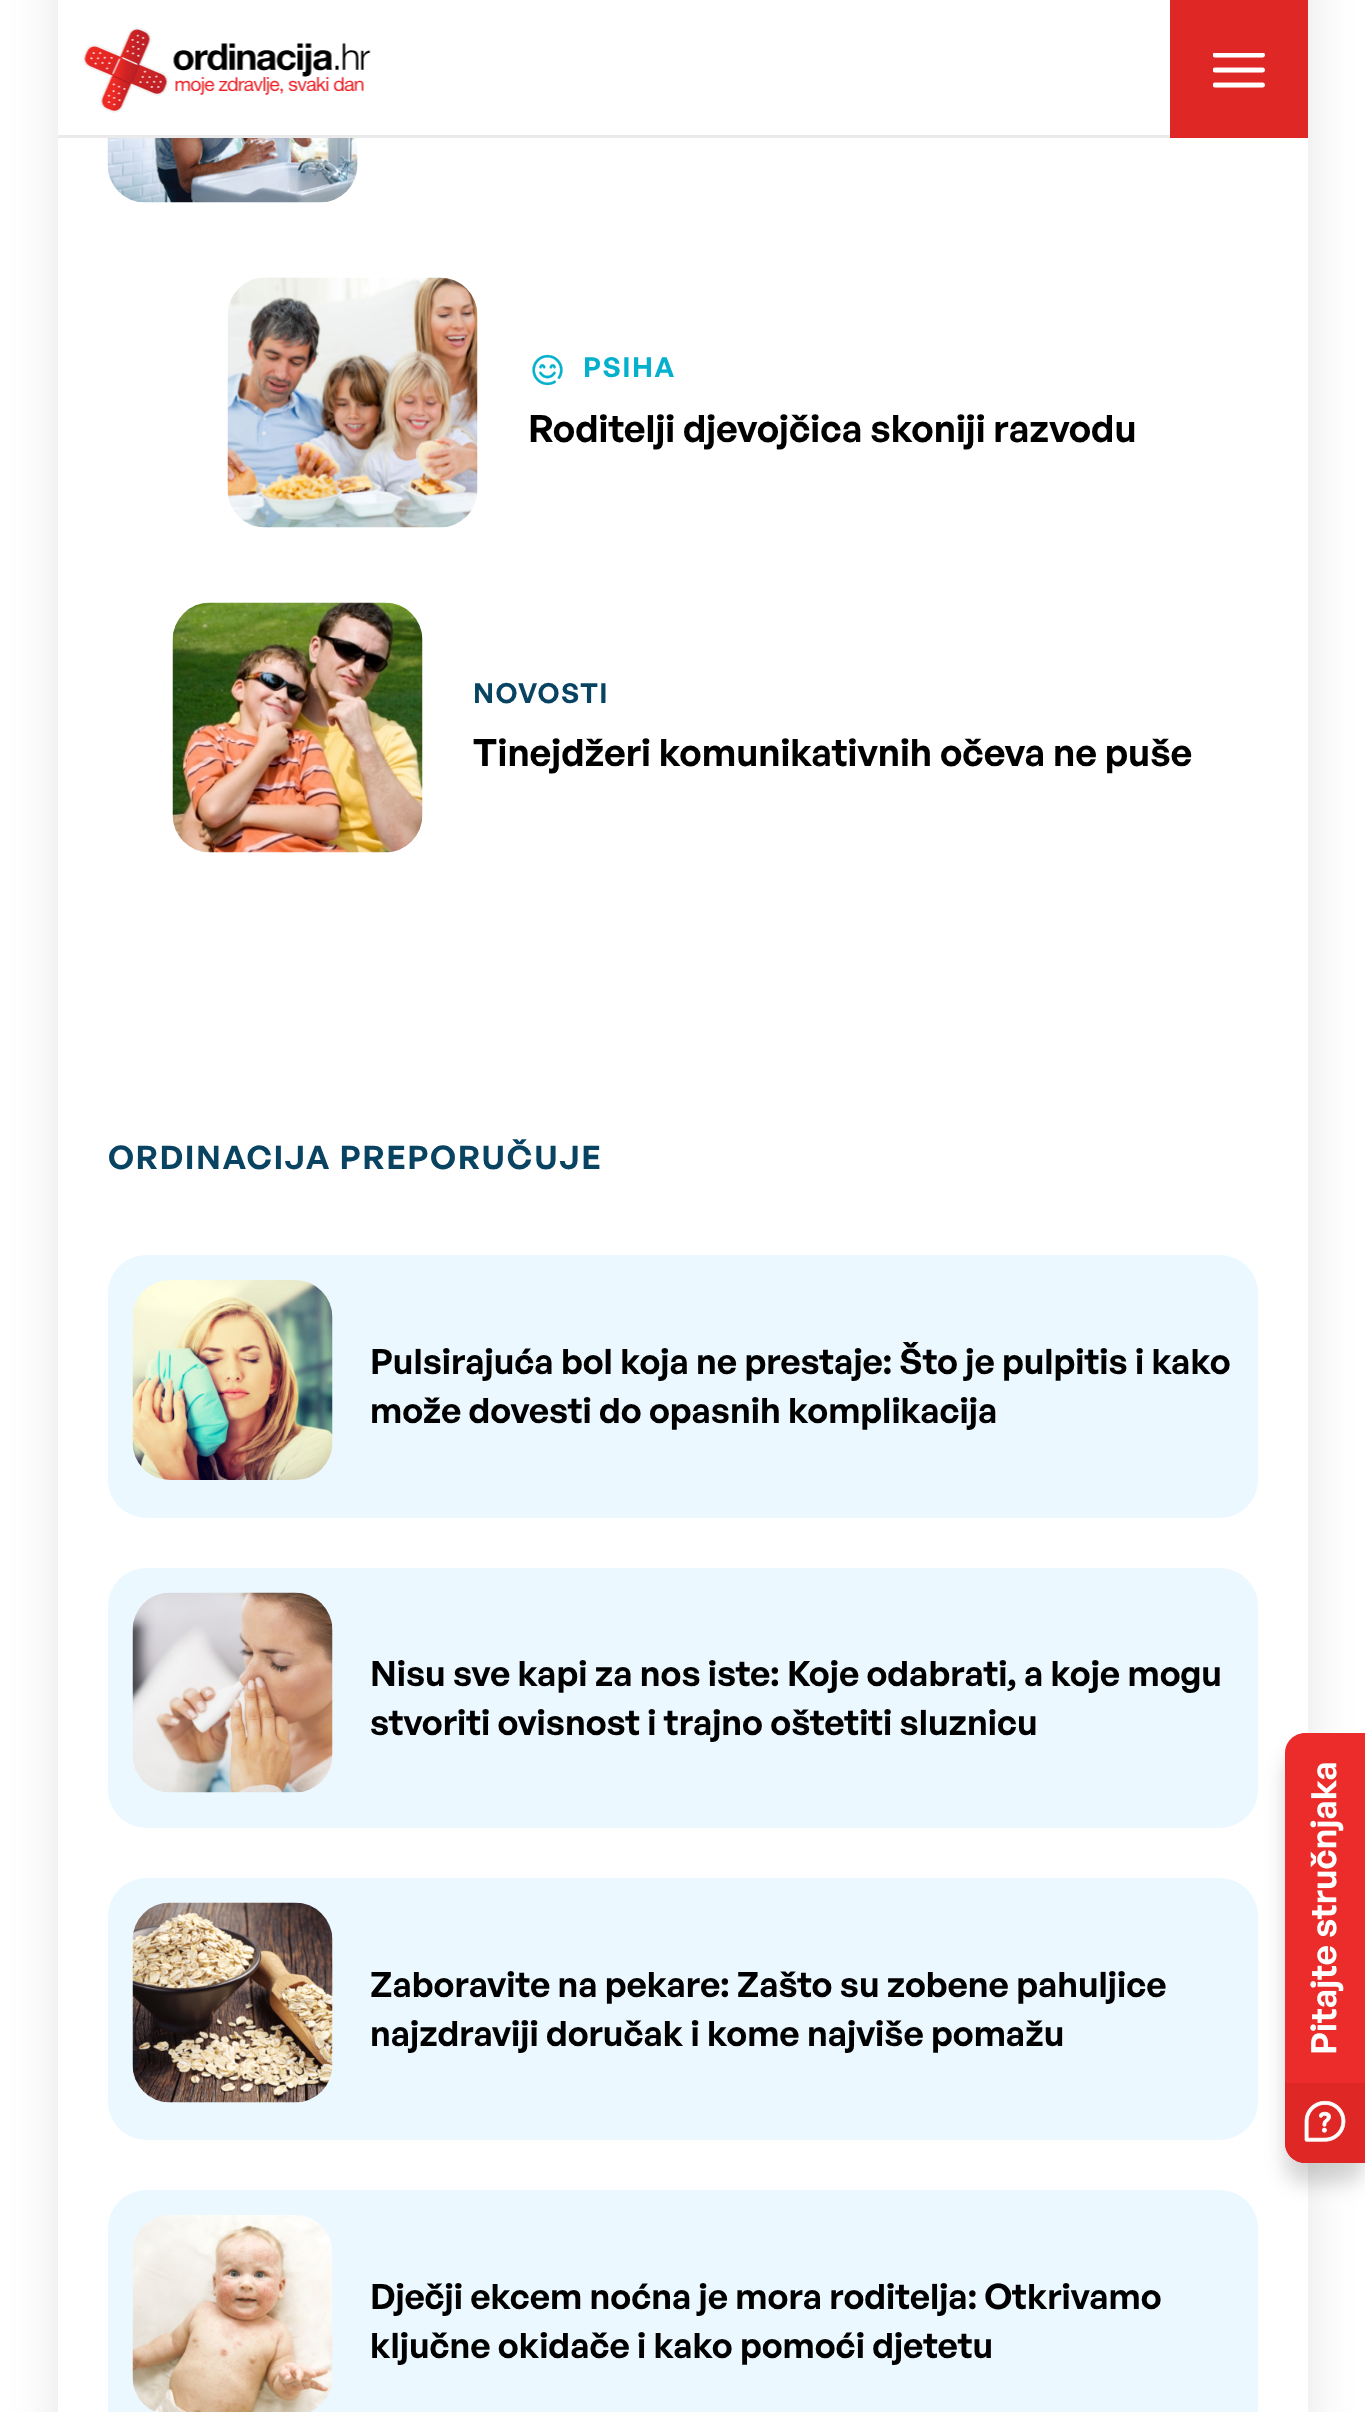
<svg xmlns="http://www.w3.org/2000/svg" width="1365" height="2412">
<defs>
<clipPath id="clip1"><path d="M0 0h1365v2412h-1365zm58-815h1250v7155h-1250z" clip-rule="evenodd"/></clipPath>
</defs>
<rect width="100%" height="100%" fill="#fff"/>
<g clip-path="url(#clip1)">
<rect x="58" y="-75" width="1250" height="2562" fill="#0000001a" filter="blur(25px)"/>
</g>
<rect x="58" y="135" width="1112" height="3" fill="#eaeaea"/>
<image x="82" y="27" width="289" height="86" href="media/1.png"/>
<rect x="1170" width="138" height="138" fill="#df2725"/>
<image x="1213" y="53" width="52" height="35" href="media/2.png"/>
<image x="107" y="138" width="251" height="65" href="media/3.png"/>
<image x="227" y="277" width="251" height="251" href="media/4.png"/>
<image x="532" y="354" width="31" height="32" href="media/5.png"/>
<text x="583" y="377" style="font-family:General Sans;font-size:27.5px;font-weight:600;letter-spacing:1.5px;fill:#05b0cc">PSIHA</text>
<text x="528" y="442" style="font-family:General Sans;font-size:37.5px;font-weight:600;fill:#000">Roditelji djevojčica skoniji razvodu</text>
<image x="172" y="602" width="251" height="251" href="media/6.png"/>
<text x="473" y="703" style="font-family:General Sans;font-size:27.5px;font-weight:600;letter-spacing:1.5px;fill:#084462">NOVOSTI</text>
<text x="473" y="766" style="font-family:General Sans;font-size:37.5px;font-weight:600;fill:#000">Tinejdžeri komunikativnih očeva ne puše</text>
<text x="108" y="1169" style="font-family:General Sans;font-size:32.5px;font-weight:600;letter-spacing:1.6px;fill:#084462">ORDINACIJA PREPORUČUJE</text>
<rect x="108" y="1255" width="1150" height="263" rx="38" fill="#ebf8ff"/>
<image x="132" y="1280" width="201" height="200" href="media/7.png"/>
<text x="370" y="1374" style="font-family:General Sans;font-size:35px;font-weight:600;fill:#000">Pulsirajuća bol koja ne prestaje: Što je pulpitis i kako</text>
<text x="370" y="1423" style="font-family:General Sans;font-size:35px;font-weight:600;fill:#000">može dovesti do opasnih komplikacija</text>
<rect x="108" y="1568" width="1150" height="260" rx="38" fill="#ebf8ff"/>
<image x="132" y="1592" width="201" height="201" href="media/8.png"/>
<text x="370" y="1686" style="font-family:General Sans;font-size:35px;font-weight:600;fill:#000">Nisu sve kapi za nos iste: Koje odabrati, a koje mogu</text>
<text x="370" y="1735" style="font-family:General Sans;font-size:35px;font-weight:600;fill:#000">stvoriti ovisnost i trajno oštetiti sluznicu</text>
<rect x="108" y="1878" width="1150" height="262" rx="38" fill="#ebf8ff"/>
<image x="132" y="1902" width="201" height="201" href="media/9.png"/>
<text x="370" y="1997" style="font-family:General Sans;font-size:35px;font-weight:600;fill:#000">Zaboravite na pekare: Zašto su zobene pahuljice</text>
<text x="370" y="2046" style="font-family:General Sans;font-size:35px;font-weight:600;fill:#000">najzdraviji doručak i kome najviše pomažu</text>
<rect x="108" y="2190" width="1150" height="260" rx="38" fill="#ebf8ff"/>
<image x="132" y="2215" width="201" height="197" href="media/10.png"/>
<text x="370" y="2309" style="font-family:General Sans;font-size:35px;font-weight:600;fill:#000">Dječji ekcem noćna je mora roditelja: Otkrivamo</text>
<text x="370" y="2358" style="font-family:General Sans;font-size:35px;font-weight:600;fill:#000">ključne okidače i kako pomoći djetetu</text>
<rect x="1285" y="1753" width="80" height="430" rx="20" fill="#0000002b" filter="blur(10px)"/>
<path d="M1305 1733h60v430h-60c-11 0-20-9-20-20v-390c0-11 9-20 20-20z" fill="#eb2c2a"/>
<image x="1310" y="1763" width="34" height="290" href="media/11.png"/>
<path d="M1285 2083h80v80h-60c-11 0-20-9-20-20z" fill="#df2725"/>
<image x="1304" y="2100" width="42" height="42" href="media/12.png"/>
</svg>
